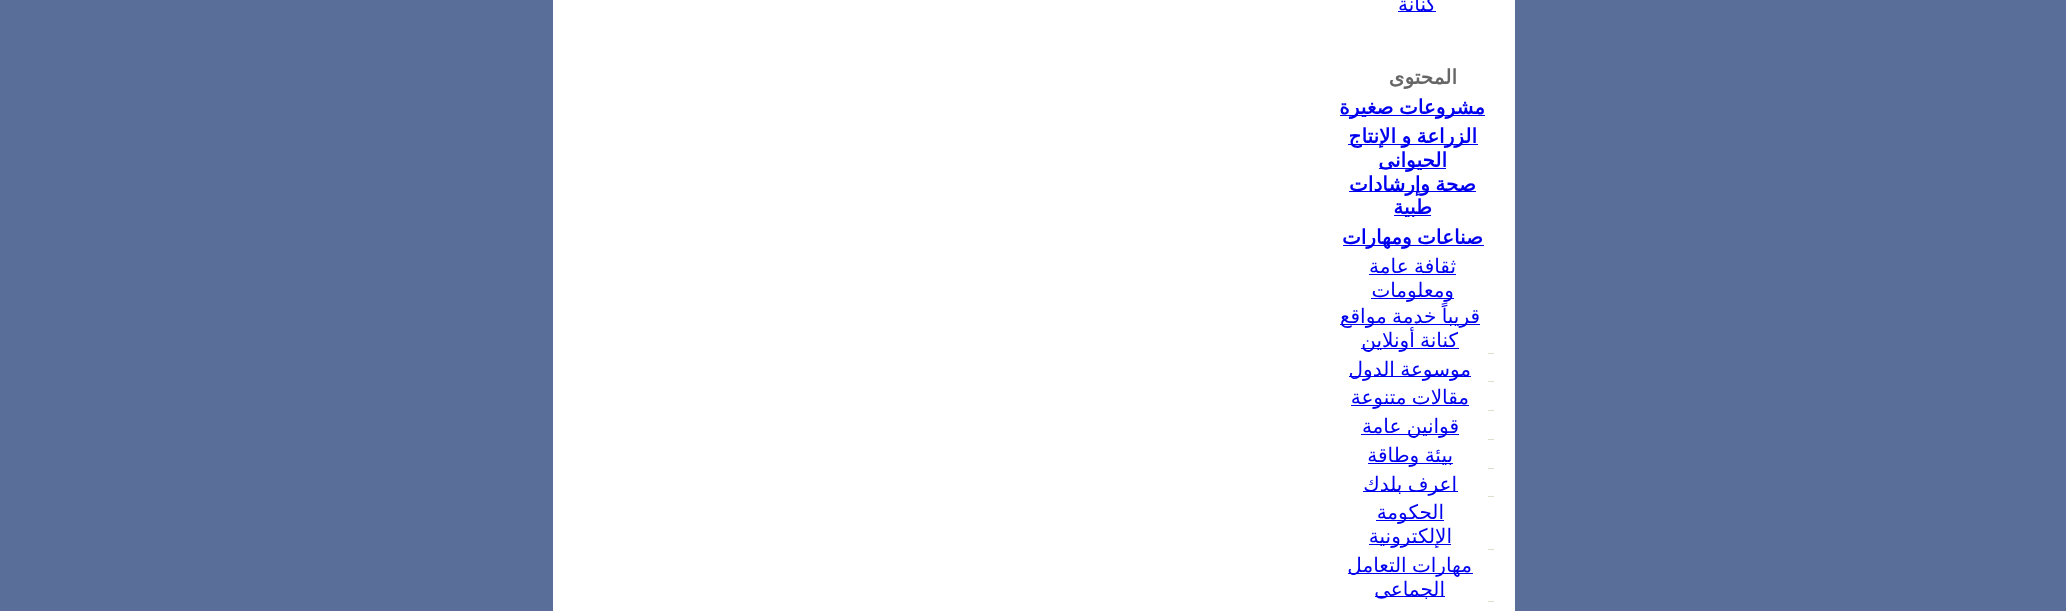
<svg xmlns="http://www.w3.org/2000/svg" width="2066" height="611">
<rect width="100%" height="100%" fill="#596f9a"/>
<rect x="553" width="962" height="611" fill="#fff"/>
<text x="1436" y="11" style="font-family:DejaVu Sans;font-size:20px;direction:rtl;fill:#00e">كنانة</text>
<rect x="1398" y="11" width="38" height="1" fill="#00e"/>
<text x="1457" y="84" style="font-family:DejaVu Sans;font-size:20px;font-weight:bold;direction:rtl;fill:#666">المحتوى</text>
<rect x="1340" y="115" width="145" height="1" fill="#00e"/>
<text x="1485" y="114" word-spacing="-1" style="font-family:DejaVu Sans;font-size:20px;font-weight:bold;direction:rtl;fill:#00e">مشروعات صغيرة</text>
<rect x="1348" y="144" width="130" height="1" fill="#00e"/>
<text x="1477" y="143" word-spacing="-1" style="font-family:DejaVu Sans;font-size:20px;font-weight:bold;direction:rtl;fill:#00e">الزراعة و الإنتاج</text>
<rect x="1379" y="168" width="67" height="1" fill="#00e"/>
<text x="1447" y="167" style="font-family:DejaVu Sans;font-size:20px;font-weight:bold;direction:rtl;fill:#00e">الحيوانى</text>
<rect x="1349" y="191" width="127" height="1" fill="#00e"/>
<text x="1476" y="191" word-spacing="-1" style="font-family:DejaVu Sans;font-size:20px;font-weight:bold;direction:rtl;fill:#00e">صحة وإرشادات</text>
<rect x="1394" y="215" width="37" height="1" fill="#00e"/>
<text x="1432" y="214" style="font-family:DejaVu Sans;font-size:20px;font-weight:bold;direction:rtl;fill:#00e">طبية</text>
<rect x="1343" y="245" width="141" height="1" fill="#00e"/>
<text x="1483" y="244" word-spacing="-1" style="font-family:DejaVu Sans;font-size:20px;font-weight:bold;direction:rtl;fill:#00e">صناعات ومهارات</text>
<text x="1456" y="273" word-spacing="-1" style="font-family:DejaVu Sans;font-size:20px;direction:rtl;fill:#00e">ثقافة عامة</text>
<rect x="1369" y="274" width="87" height="1" fill="#00e"/>
<rect x="1371" y="298" width="83" height="1" fill="#00e"/>
<text x="1454" y="297" style="font-family:DejaVu Sans;font-size:20px;direction:rtl;fill:#00e">ومعلومات</text>
<rect x="1340" y="324" width="140" height="1" fill="#00e"/>
<text x="1480" y="323" word-spacing="-1" style="font-family:DejaVu Sans;font-size:20px;direction:rtl;fill:#00e">قريباً خدمة مواقع</text>
<rect x="1361" y="348" width="98" height="1" fill="#00e"/>
<text x="1458" y="347" word-spacing="-1" style="font-family:DejaVu Sans;font-size:20px;direction:rtl;fill:#00e">كنانة أونلاين</text>
<rect x="1488" y="353" width="6" height="1" fill="#ddc"/>
<rect x="1349" y="376" width="122" height="1" fill="#00e"/>
<text x="1471" y="376" word-spacing="-1" style="font-family:DejaVu Sans;font-size:20px;direction:rtl;fill:#00e">موسوعة الدول</text>
<rect x="1488" y="381" width="6" height="1" fill="#ddc"/>
<rect x="1351" y="405" width="118" height="1" fill="#00e"/>
<text x="1469" y="404" word-spacing="-1" style="font-family:DejaVu Sans;font-size:20px;direction:rtl;fill:#00e">مقالات متنوعة</text>
<rect x="1488" y="410" width="6" height="1" fill="#ddc"/>
<rect x="1361" y="434" width="98" height="1" fill="#00e"/>
<text x="1459" y="433" word-spacing="-1" style="font-family:DejaVu Sans;font-size:20px;direction:rtl;fill:#00e">قوانين عامة</text>
<rect x="1488" y="439" width="6" height="1" fill="#ddc"/>
<rect x="1368" y="463" width="85" height="1" fill="#00e"/>
<text x="1453" y="462" word-spacing="-1" style="font-family:DejaVu Sans;font-size:20px;direction:rtl;fill:#00e">بيئة وطاقة</text>
<rect x="1488" y="468" width="6" height="1" fill="#ddc"/>
<rect x="1363" y="491" width="95" height="1" fill="#00e"/>
<text x="1457" y="491" word-spacing="-1" style="font-family:DejaVu Sans;font-size:20px;direction:rtl;fill:#00e">اعرف بلدك</text>
<rect x="1488" y="496" width="6" height="1" fill="#ddc"/>
<rect x="1376" y="520" width="68" height="1" fill="#00e"/>
<text x="1444" y="519" style="font-family:DejaVu Sans;font-size:20px;direction:rtl;fill:#00e">الحكومة</text>
<rect x="1369" y="544" width="82" height="1" fill="#00e"/>
<text x="1452" y="543" style="font-family:DejaVu Sans;font-size:20px;direction:rtl;fill:#00e">الإلكترونية</text>
<rect x="1488" y="549" width="6" height="1" fill="#ddc"/>
<rect x="1348" y="573" width="125" height="1" fill="#00e"/>
<text x="1472" y="572" word-spacing="-1" style="font-family:DejaVu Sans;font-size:20px;direction:rtl;fill:#00e">مهارات التعامل</text>
<rect x="1375" y="596" width="70" height="1" fill="#00e"/>
<text x="1445" y="596" style="font-family:DejaVu Sans;font-size:20px;direction:rtl;fill:#00e">الجماعى</text>
<rect x="1488" y="601" width="6" height="1" fill="#ddc"/>
</svg>
